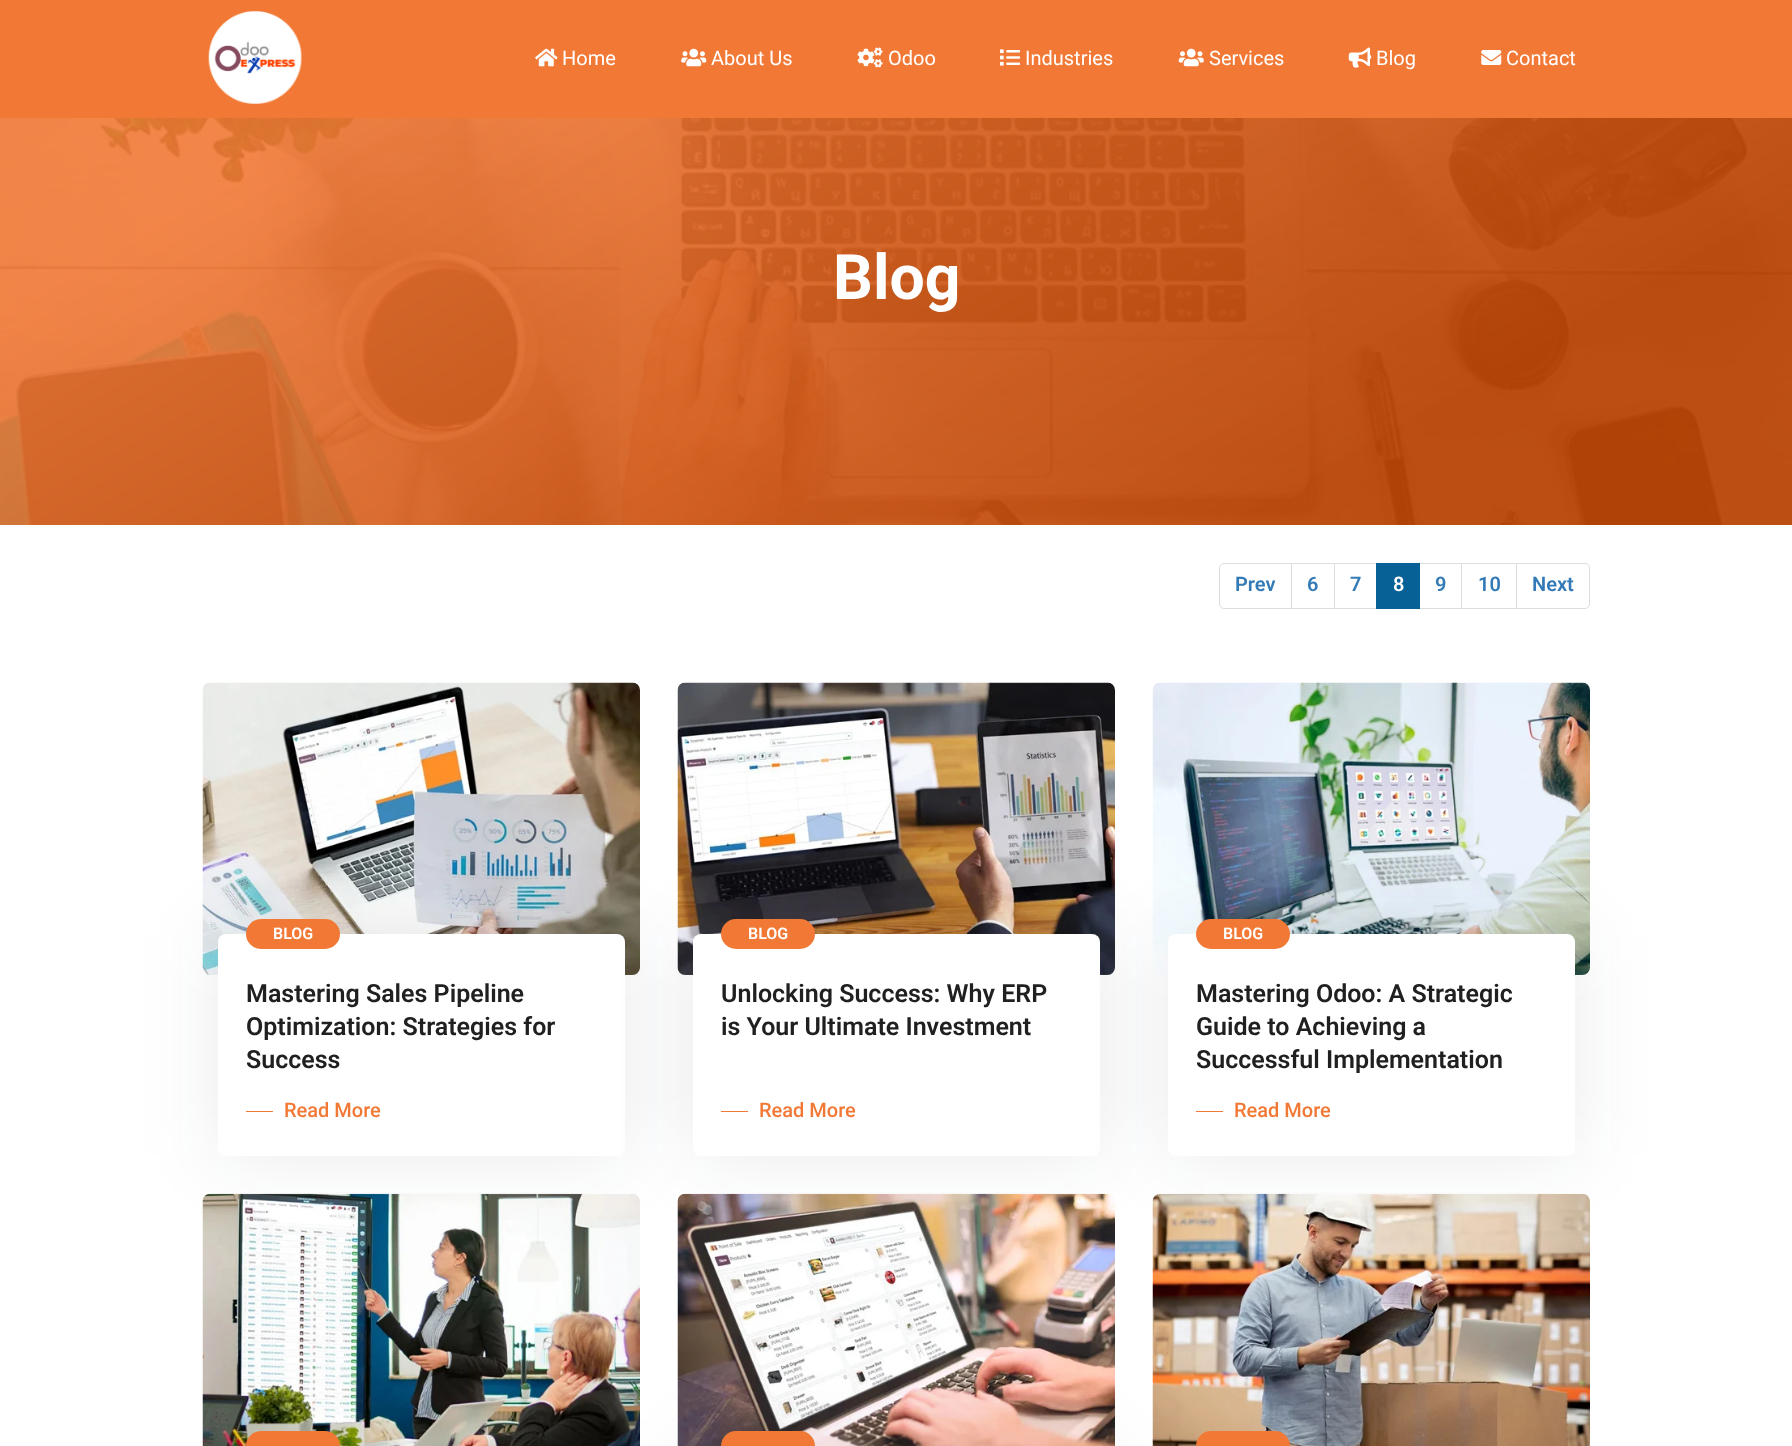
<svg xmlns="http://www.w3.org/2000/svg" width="1792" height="1446">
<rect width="100%" height="100%" fill="#fff"/>
<rect width="1792" height="118" fill="#f27935"/>
<image x="208" y="11" width="94" height="93" href="media/1.png"/>
<image x="535" y="48" width="23" height="19" href="media/2.png"/>
<text x="562" y="65" style="font-family:Roboto;font-size:20px;fill:#fff">Home</text>
<image x="681" y="48" width="26" height="19" href="media/3.png"/>
<text x="711" y="65" style="font-family:Roboto;font-size:20px;fill:#fff">About Us</text>
<image x="857" y="47" width="26" height="21" href="media/4.png"/>
<text x="888" y="65" style="font-family:Roboto;font-size:20px;fill:#fff">Odoo</text>
<image x="1000" y="49" width="20" height="17" href="media/5.png"/>
<text x="1025" y="65" style="font-family:Roboto;font-size:20px;fill:#fff">Industries</text>
<image x="1178" y="48" width="26" height="19" href="media/6.png"/>
<text x="1209" y="65" style="font-family:Roboto;font-size:20px;fill:#fff">Services</text>
<image x="1348" y="47" width="24" height="21" href="media/7.png"/>
<text x="1376" y="65" style="font-family:Roboto;font-size:20px;fill:#fff">Blog</text>
<image x="1481" y="50" width="21" height="15" href="media/8.png"/>
<text x="1506" y="65" style="font-family:Roboto;font-size:20px;fill:#fff">Contact</text>
<image x="0" y="118" width="1792" height="407" href="media/9.png"/>
<text x="833" y="299" style="font-family:Roboto;font-size:62.5px;font-weight:bold;fill:#fff">Blog</text>
<path d="M1224 563.5h68.5v45h-68.5c-2.5 0-4.5-2-4.5-4.5v-36c0-2.5 2-4.5 4.5-4.5z" fill="none" stroke="#ddd"/>
<text x="1235" y="591" style="font-family:Roboto;font-size:20px;font-weight:600;fill:#337ab7">Prev</text>
<rect x="1292" y="564" width="1" height="44" fill="#fff"/>
<rect x="1291.5" y="563.5" width="43" height="45" fill="none" stroke="#ddd"/>
<text x="1307" y="591" style="font-family:Roboto;font-size:20px;font-weight:600;fill:#337ab7">6</text>
<rect x="1334.5" y="563.5" width="43" height="45" fill="none" stroke="#ddd"/>
<text x="1350" y="591" style="font-family:Roboto;font-size:20px;font-weight:600;fill:#337ab7">7</text>
<rect x="1419.5" y="563.5" width="43" height="45" fill="none" stroke="#ddd"/>
<rect x="1376" y="563" width="44" height="46" fill="#076197"/>
<text x="1393" y="591" style="font-family:Roboto;font-size:20px;font-weight:600;fill:#fff">8</text>
<text x="1435" y="591" style="font-family:Roboto;font-size:20px;font-weight:600;fill:#337ab7">9</text>
<rect x="1462" y="564" width="1" height="44" fill="#fff"/>
<rect x="1461.5" y="563.5" width="56" height="45" fill="none" stroke="#ddd"/>
<text x="1478" y="591" style="font-family:Roboto;font-size:20px;font-weight:600;fill:#337ab7">10</text>
<path d="M1516.5 563.5h68.5c2.5 0 4.5 2 4.5 4.5v36c0 2.5-2 4.5-4.5 4.5h-68.5z" fill="#fff" stroke="#ddd"/>
<text x="1532" y="591" style="font-family:Roboto;font-size:20px;font-weight:600;fill:#337ab7">Next</text>
<image x="202" y="682" width="438" height="293" href="media/10.png"/>
<rect x="218" y="934" width="407" height="222" rx="8" fill="#1b1f2d17" filter="blur(39px)"/>
<rect x="218" y="934" width="407" height="222" rx="8" fill="#fff"/>
<rect x="246" y="919" width="94" height="30" rx="15" fill="#f27935"/>
<text x="273" y="939" style="font-family:Roboto;font-size:16px;font-weight:600;fill:#fff">BLOG</text>
<text x="246" y="1002" style="font-family:Roboto;font-size:25px;font-weight:600;fill:#202020">Mastering Sales Pipeline</text>
<text x="246" y="1035" style="font-family:Roboto;font-size:25px;font-weight:600;fill:#202020">Optimization: Strategies for</text>
<text x="246" y="1068" style="font-family:Roboto;font-size:25px;font-weight:600;fill:#202020">Success</text>
<rect x="246" y="1111" width="27" height="1" fill="#f27935"/>
<text x="284" y="1117" style="font-family:Roboto;font-size:20px;font-weight:500;fill:#f27935">Read More</text>
<image x="677" y="682" width="438" height="293" href="media/11.png"/>
<rect x="693" y="934" width="407" height="222" rx="8" fill="#1b1f2d17" filter="blur(39px)"/>
<rect x="693" y="934" width="407" height="222" rx="8" fill="#fff"/>
<rect x="721" y="919" width="94" height="30" rx="15" fill="#f27935"/>
<text x="748" y="939" style="font-family:Roboto;font-size:16px;font-weight:600;fill:#fff">BLOG</text>
<text x="721" y="1002" style="font-family:Roboto;font-size:25px;font-weight:600;fill:#202020">Unlocking Success: Why ERP</text>
<text x="721" y="1035" style="font-family:Roboto;font-size:25px;font-weight:600;fill:#202020">is Your Ultimate Investment</text>
<rect x="721" y="1111" width="27" height="1" fill="#f27935"/>
<text x="759" y="1117" style="font-family:Roboto;font-size:20px;font-weight:500;fill:#f27935">Read More</text>
<image x="1152" y="682" width="438" height="293" href="media/12.png"/>
<rect x="1168" y="934" width="407" height="222" rx="8" fill="#1b1f2d17" filter="blur(39px)"/>
<rect x="1168" y="934" width="407" height="222" rx="8" fill="#fff"/>
<rect x="1196" y="919" width="94" height="30" rx="15" fill="#f27935"/>
<text x="1223" y="939" style="font-family:Roboto;font-size:16px;font-weight:600;fill:#fff">BLOG</text>
<text x="1196" y="1002" style="font-family:Roboto;font-size:25px;font-weight:600;fill:#202020">Mastering Odoo: A Strategic</text>
<text x="1196" y="1035" style="font-family:Roboto;font-size:25px;font-weight:600;fill:#202020">Guide to Achieving a</text>
<text x="1196" y="1068" style="font-family:Roboto;font-size:25px;font-weight:600;fill:#202020">Successful Implementation</text>
<rect x="1196" y="1111" width="27" height="1" fill="#f27935"/>
<text x="1234" y="1117" style="font-family:Roboto;font-size:20px;font-weight:500;fill:#f27935">Read More</text>
<image x="202" y="1193" width="438" height="253" href="media/13.png"/>
<rect x="246" y="1431" width="94" height="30" rx="15" fill="#f27935"/>
<image x="677" y="1193" width="438" height="253" href="media/14.png"/>
<rect x="693" y="1446" width="407" height="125" rx="8" fill="#1b1f2d17" filter="blur(39px)"/>
<rect x="721" y="1431" width="94" height="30" rx="15" fill="#f27935"/>
<image x="1152" y="1193" width="438" height="253" href="media/15.png"/>
<rect x="1196" y="1431" width="94" height="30" rx="15" fill="#f27935"/>
</svg>
